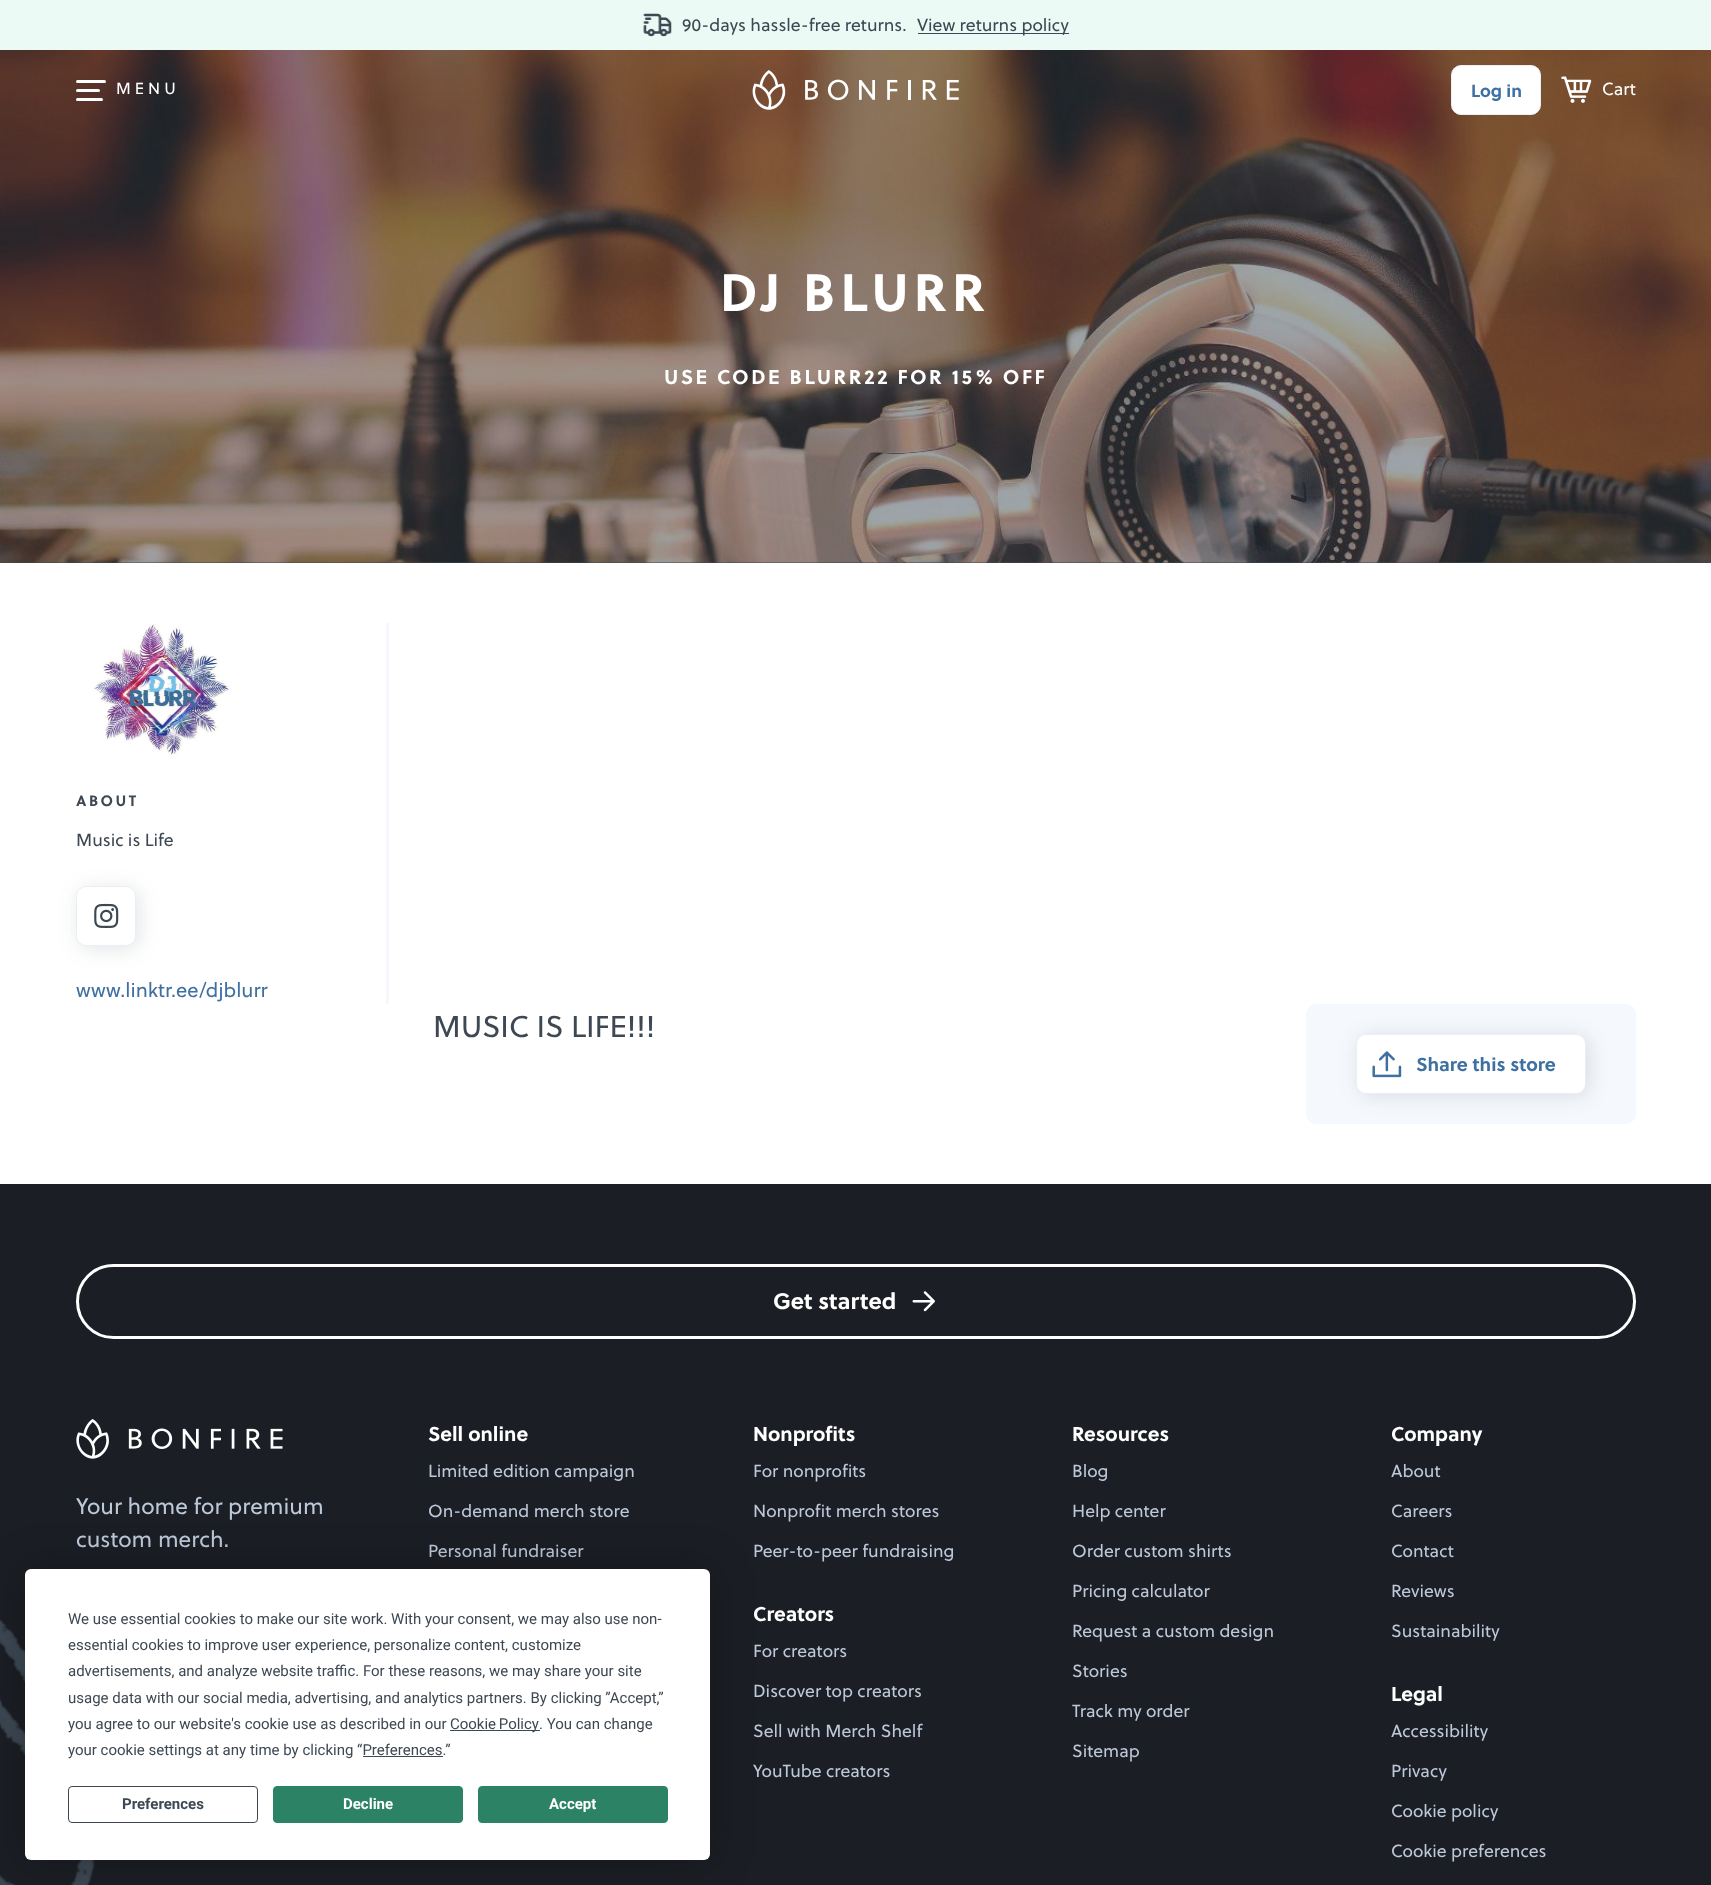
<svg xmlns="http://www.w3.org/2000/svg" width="1711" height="1885">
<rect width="100%" height="100%" fill="#fff"/>
<rect width="1711" height="50" fill="#ebfaf4"/>
<image x="643" y="13" width="29" height="24" href="media/1.png"/>
<text x="682" y="31" style="font-family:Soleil;font-size:17.5px;fill:#3d4853">90-days hassle-free returns.</text>
<rect x="918" y="33" width="151" height="1" fill="#3d4853"/>
<text x="917" y="31" style="font-family:Soleil;font-size:17.5px;fill:#3d4853">View returns policy</text>
<rect y="50" width="1711" height="513" fill="#3d4853"/>
<image x="0" y="50" width="1711" height="513" href="media/4.png"/>
<rect x="76" y="80" width="30" height="3" rx="1.5" fill="#fff"/>
<rect x="76" y="89" width="24" height="3" rx="1.5" fill="#fff"/>
<text x="116" y="94" style="font-family:Soleil;font-size:16px;letter-spacing:4px;fill:#fff">MENU</text>
<rect x="76" y="98" width="27" height="3" rx="1.5" fill="#fff"/>
<image x="752" y="70" width="207" height="40" href="media/2.png"/>
<rect x="1451.5" y="65.5" width="89" height="49" rx="9.5" fill="#fff" stroke="#eaeff7"/>
<text x="1471" y="97" style="font-family:Soleil;font-size:17.5px;font-weight:bold;fill:#3f70a2">Log in</text>
<image x="1561" y="76" width="31" height="27" href="media/3.png"/>
<text x="1602" y="95" style="font-family:Soleil;font-size:17.5px;fill:#fff">Cart</text>
<text x="720" y="311" style="font-family:Soleil;font-size:52.5px;font-weight:bold;letter-spacing:5px;fill:#fff">DJ BLURR</text>
<text x="664" y="384" style="font-family:Soleil;font-size:20px;font-weight:bold;letter-spacing:2.5px;fill:#fff">USE CODE BLURR22 FOR 15% OFF</text>
<rect x="386" y="623" width="3" height="381" fill="#f5f8fc"/>
<image x="91" y="623" width="139" height="133" href="media/5.png"/>
<text x="76" y="806" style="font-family:Soleil;font-size:15px;font-weight:bold;letter-spacing:2.5px;fill:#3d4853">ABOUT</text>
<text x="76" y="846" style="font-family:Soleil;font-size:17.5px;fill:#3d4853">Music is Life</text>
<rect x="79" y="889" width="60" height="60" rx="10" fill="#3d485326" filter="blur(10px)"/>
<rect x="76.5" y="886.5" width="59" height="59" rx="9.5" fill="#fff" stroke="#eaeff7"/>
<image x="94" y="903" width="25" height="25" href="media/6.png"/>
<text x="76" y="997" style="font-family:Soleil;font-size:20px;fill:#3f70a2">www.linktr.ee/djblurr</text>
<text x="433" y="1037" style="font-family:Soleil;font-size:30px;fill:#3d4853">MUSIC IS LIFE!!!</text>
<rect x="1306" y="1004" width="330" height="120" rx="10" fill="#f5f8fc"/>
<rect x="1359" y="1036" width="230" height="60" rx="10" fill="#3d485326" filter="blur(10px)"/>
<rect x="1356.5" y="1034.5" width="229" height="59" rx="9.5" fill="#fff" stroke="#eaeff7"/>
<image x="1372" y="1051" width="30" height="27" href="media/7.png"/>
<text x="1416" y="1071" style="font-family:Soleil;font-size:18.75px;font-weight:bold;fill:#3f70a2">Share this store</text>
<rect y="1184" width="1711" height="701" fill="#1b1e24"/>
<rect x="77.5" y="1265.5" width="1557" height="72" rx="36" fill="none" stroke="#fff" stroke-width="3"/>
<text x="773" y="1309" style="font-family:Soleil;font-size:22.5px;font-weight:bold;fill:#fff">Get started</text>
<image x="912" y="1291" width="23" height="21" href="media/8.png"/>
<image x="76" y="1419" width="207" height="40" href="media/9.png"/>
<text x="76" y="1514" style="font-family:Soleil;font-size:22.5px;fill:#bdc8d9">Your home for premium</text>
<text x="76" y="1547" style="font-family:Soleil;font-size:22.5px;fill:#bdc8d9">custom merch.</text>
<text x="428" y="1441" style="font-family:Soleil;font-size:20px;font-weight:bold;fill:#fff">Sell online</text>
<text x="428" y="1477" style="font-family:Soleil;font-size:17.5px;fill:#bdc8d9">Limited edition campaign</text>
<text x="428" y="1517" style="font-family:Soleil;font-size:17.5px;fill:#bdc8d9">On-demand merch store</text>
<text x="428" y="1557" style="font-family:Soleil;font-size:17.5px;fill:#bdc8d9">Personal fundraiser</text>
<text x="753" y="1441" style="font-family:Soleil;font-size:20px;font-weight:bold;fill:#fff">Nonprofits</text>
<text x="753" y="1477" style="font-family:Soleil;font-size:17.5px;fill:#bdc8d9">For nonprofits</text>
<text x="753" y="1517" style="font-family:Soleil;font-size:17.5px;fill:#bdc8d9">Nonprofit merch stores</text>
<text x="753" y="1557" style="font-family:Soleil;font-size:17.5px;fill:#bdc8d9">Peer-to-peer fundraising</text>
<text x="753" y="1621" style="font-family:Soleil;font-size:20px;font-weight:bold;fill:#fff">Creators</text>
<text x="753" y="1657" style="font-family:Soleil;font-size:17.5px;fill:#bdc8d9">For creators</text>
<text x="753" y="1697" style="font-family:Soleil;font-size:17.5px;fill:#bdc8d9">Discover top creators</text>
<text x="753" y="1737" style="font-family:Soleil;font-size:17.5px;fill:#bdc8d9">Sell with Merch Shelf</text>
<text x="753" y="1777" style="font-family:Soleil;font-size:17.5px;fill:#bdc8d9">YouTube creators</text>
<text x="1072" y="1441" style="font-family:Soleil;font-size:20px;font-weight:bold;fill:#fff">Resources</text>
<text x="1072" y="1477" style="font-family:Soleil;font-size:17.5px;fill:#bdc8d9">Blog</text>
<text x="1072" y="1517" style="font-family:Soleil;font-size:17.5px;fill:#bdc8d9">Help center</text>
<text x="1072" y="1557" style="font-family:Soleil;font-size:17.5px;fill:#bdc8d9">Order custom shirts</text>
<text x="1072" y="1597" style="font-family:Soleil;font-size:17.5px;fill:#bdc8d9">Pricing calculator</text>
<text x="1072" y="1637" style="font-family:Soleil;font-size:17.5px;fill:#bdc8d9">Request a custom design</text>
<text x="1072" y="1677" style="font-family:Soleil;font-size:17.5px;fill:#bdc8d9">Stories</text>
<text x="1072" y="1717" style="font-family:Soleil;font-size:17.5px;fill:#bdc8d9">Track my order</text>
<text x="1072" y="1757" style="font-family:Soleil;font-size:17.5px;fill:#bdc8d9">Sitemap</text>
<text x="1391" y="1441" style="font-family:Soleil;font-size:20px;font-weight:bold;fill:#fff">Company</text>
<text x="1391" y="1477" style="font-family:Soleil;font-size:17.5px;fill:#bdc8d9">About</text>
<text x="1391" y="1517" style="font-family:Soleil;font-size:17.5px;fill:#bdc8d9">Careers</text>
<text x="1391" y="1557" style="font-family:Soleil;font-size:17.5px;fill:#bdc8d9">Contact</text>
<text x="1391" y="1597" style="font-family:Soleil;font-size:17.5px;fill:#bdc8d9">Reviews</text>
<text x="1391" y="1637" style="font-family:Soleil;font-size:17.5px;fill:#bdc8d9">Sustainability</text>
<text x="1391" y="1701" style="font-family:Soleil;font-size:20px;font-weight:bold;fill:#fff">Legal</text>
<text x="1391" y="1737" style="font-family:Soleil;font-size:17.5px;fill:#bdc8d9">Accessibility</text>
<text x="1391" y="1777" style="font-family:Soleil;font-size:17.5px;fill:#bdc8d9">Privacy</text>
<text x="1391" y="1817" style="font-family:Soleil;font-size:17.5px;fill:#bdc8d9">Cookie policy</text>
<text x="1391" y="1857" style="font-family:Soleil;font-size:17.5px;fill:#bdc8d9">Cookie preferences</text>
<image x="0" y="1619" width="96" height="266" href="media/10.png"/>
<rect x="25" y="1569" width="685" height="291" rx="6" fill="#00000040" filter="blur(22px)"/>
<rect x="25" y="1569" width="685" height="291" rx="6" fill="#fff"/>
<text x="68" y="1624" style="font-family:Roboto;font-size:15px;fill:#3d4853">We use essential cookies to make our site work. With your consent, we may also use non-</text>
<text x="68" y="1650" style="font-family:Roboto;font-size:15px;fill:#3d4853">essential cookies to improve user experience, personalize content, customize</text>
<text x="68" y="1676" style="font-family:Roboto;font-size:15px;fill:#3d4853">advertisements, and analyze website traffic. For these reasons, we may share your site</text>
<text x="68" y="1703" style="font-family:Roboto;font-size:15px;fill:#3d4853">usage data with our social media, advertising, and analytics partners. By clicking ”Accept,”</text>
<text x="68" y="1729" style="font-family:Roboto;font-size:15px;fill:#3d4853">you agree to our website's cookie use as described in our</text>
<rect x="450" y="1730" width="90" height="1" fill="#3d4853"/>
<text x="450" y="1729" word-spacing="-1" style="font-family:Roboto;font-size:15px;fill:#3d4853">Cookie Policy</text>
<text x="539" y="1729" style="font-family:Roboto;font-size:15px;fill:#3d4853">. You can change</text>
<text x="68" y="1755" style="font-family:Roboto;font-size:15px;fill:#3d4853">your cookie settings at any time by clicking “Preferences.”</text>
<rect x="363" y="1756" width="80" height="1" fill="#3d4853"/>
<rect x="68.5" y="1786.5" width="189" height="36" rx="3.5" fill="none" stroke="#3d4853"/>
<text x="122" y="1809" style="font-family:Roboto;font-size:15px;font-weight:bold;fill:#3d4853">Preferences</text>
<rect x="273.5" y="1786.5" width="189" height="36" rx="3.5" fill="#2b8265" stroke="#2b8265"/>
<text x="343" y="1809" style="font-family:Roboto;font-size:15px;font-weight:bold;fill:#fff">Decline</text>
<rect x="478.5" y="1786.5" width="189" height="36" rx="3.5" fill="#2b8265" stroke="#2b8265"/>
<text x="549" y="1809" style="font-family:Roboto;font-size:15px;font-weight:bold;fill:#fff">Accept</text>
</svg>
